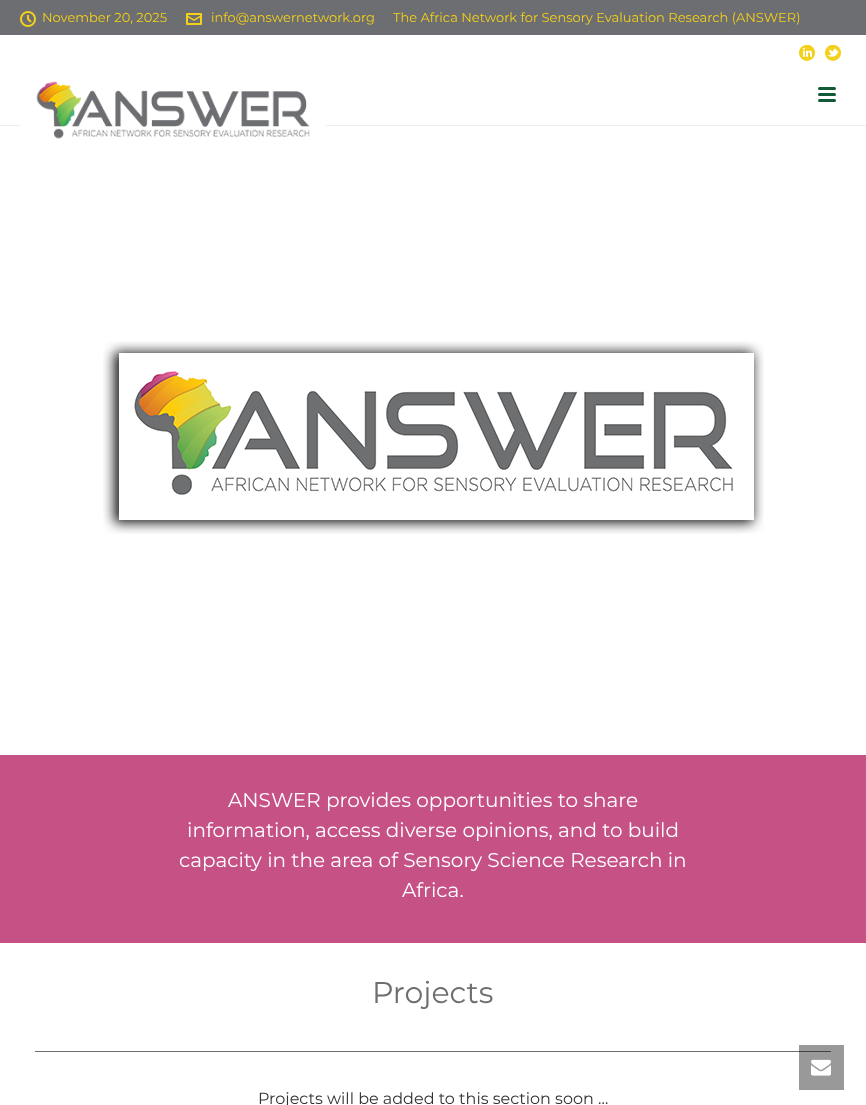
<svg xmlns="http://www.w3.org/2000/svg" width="866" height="1105">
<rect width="100%" height="100%" fill="#fff"/>
<rect x="799" y="1045" width="45" height="45" fill="#999"/>
<rect y="125" width="866" height="1" fill="#ededed"/>
<rect width="866" height="35" fill="#6d6e71"/>
<image x="20" y="11" width="16" height="16" href="media/1.png"/>
<text x="42" y="22" style="font-family:Montserrat;font-size:13px;fill:#f3d01a">November 20, 2025</text>
<image x="186" y="13" width="16" height="12" href="media/2.png"/>
<text x="211" y="22" style="font-family:Montserrat;font-size:13px;fill:#f3d01a">info@answernetwork.org</text>
<text x="393" y="22" style="font-family:Montserrat;font-size:13px;fill:#f3d01a">The Africa Network for Sensory Evaluation Research (ANSWER)</text>
<image x="799" y="45" width="16" height="16" href="media/3.png"/>
<image x="825" y="45" width="16" height="16" href="media/4.png"/>
<image x="20" y="81" width="306" height="58" href="media/5.png"/>
<rect x="818" y="87" width="18" height="3" rx="1.5" fill="#145935"/>
<rect x="818" y="93" width="18" height="3" rx="1.5" fill="#145935"/>
<rect x="818" y="99" width="18" height="3" rx="1.5" fill="#145935"/>
<image x="103" y="341" width="661" height="193" href="media/6.png"/>
<rect y="755" width="866" height="188" fill="#c55185"/>
<text x="228" y="807" style="font-family:Montserrat;font-size:20px;fill:#fff">ANSWER provides opportunities to share</text>
<text x="187" y="837" style="font-family:Montserrat;font-size:20px;fill:#fff">information, access diverse opinions, and to build</text>
<text x="179" y="867" style="font-family:Montserrat;font-size:20px;fill:#fff">capacity in the area of Sensory Science Research in</text>
<text x="402" y="897" style="font-family:Montserrat;font-size:20px;fill:#fff">Africa.</text>
<text x="372" y="1003" style="font-family:Montserrat;font-size:30px;fill:#6d6e71">Projects</text>
<rect x="35" y="1051" width="764" height="1" fill="#6d6e71"/>
<rect x="799" y="1051" width="32" height="1" fill="#414244"/>
<text x="258" y="1104" style="font-family:Montserrat;font-size:16px;fill:#333">Projects will be added to this section soon …</text>
<image x="811" y="1059" width="20" height="17" href="media/7.png"/>
</svg>
